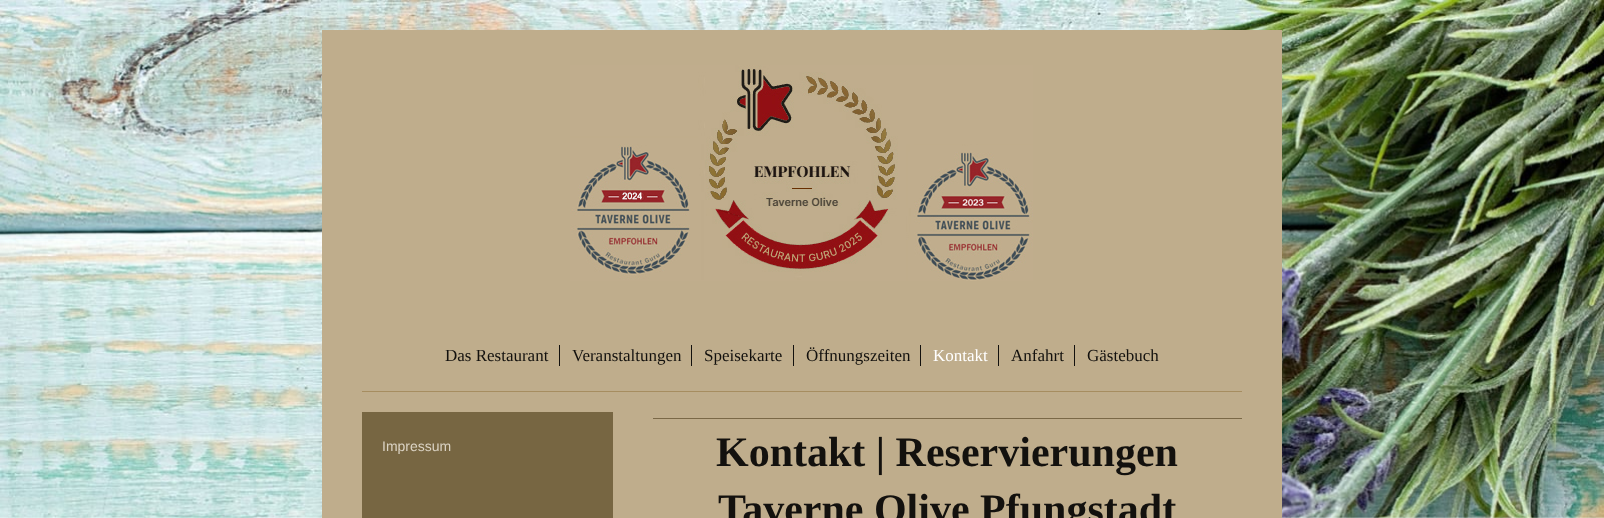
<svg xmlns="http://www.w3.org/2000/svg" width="1604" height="518">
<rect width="100%" height="100%" fill="#fff"/>
<image x="0" y="0" width="1604" height="518" href="media/1.png"/>
<rect x="322" y="30" width="960" height="488" fill="#bfad8c"/>
<image x="570" y="65" width="463" height="216" href="media/2.png"/>
<rect x="362" y="391" width="880" height="1" fill="#a68d60"/>
<rect x="559" y="345" width="1" height="21" fill="#13110e"/>
<text x="445" y="361" style="font-family:Liberation Serif;font-size:17px;fill:#13110e">Das Restaurant</text>
<rect x="691" y="345" width="1" height="21" fill="#13110e"/>
<text x="572" y="361" style="font-family:Liberation Serif;font-size:17px;fill:#13110e">Veranstaltungen</text>
<rect x="793" y="345" width="1" height="21" fill="#13110e"/>
<text x="704" y="361" style="font-family:Liberation Serif;font-size:17px;fill:#13110e">Speisekarte</text>
<rect x="920" y="345" width="1" height="21" fill="#13110e"/>
<text x="806" y="361" style="font-family:Liberation Serif;font-size:17px;fill:#13110e">Öffnungszeiten</text>
<rect x="998" y="345" width="1" height="21" fill="#13110e"/>
<text x="933" y="361" style="font-family:Liberation Serif;font-size:17px;fill:#fff">Kontakt</text>
<rect x="1074" y="345" width="1" height="21" fill="#13110e"/>
<text x="1011" y="361" style="font-family:Liberation Serif;font-size:17px;fill:#13110e">Anfahrt</text>
<text x="1087" y="361" style="font-family:Liberation Serif;font-size:17px;fill:#13110e">Gästebuch</text>
<rect x="362" y="412" width="251" height="106" fill="#776642"/>
<text x="382" y="451" style="font-family:Liberation Sans;font-size:14px;fill:#dbd3c4">Impressum</text>
<rect x="653" y="418" width="589" height="1" fill="#7a6847"/>
<text x="716" y="466" style="font-family:Liberation Serif;font-size:42px;font-weight:bold;fill:#13110e">Kontakt | Reservierungen</text>
<text x="718" y="523" style="font-family:Liberation Serif;font-size:42px;font-weight:bold;fill:#13110e">Taverne Olive Pfungstadt</text>
</svg>
